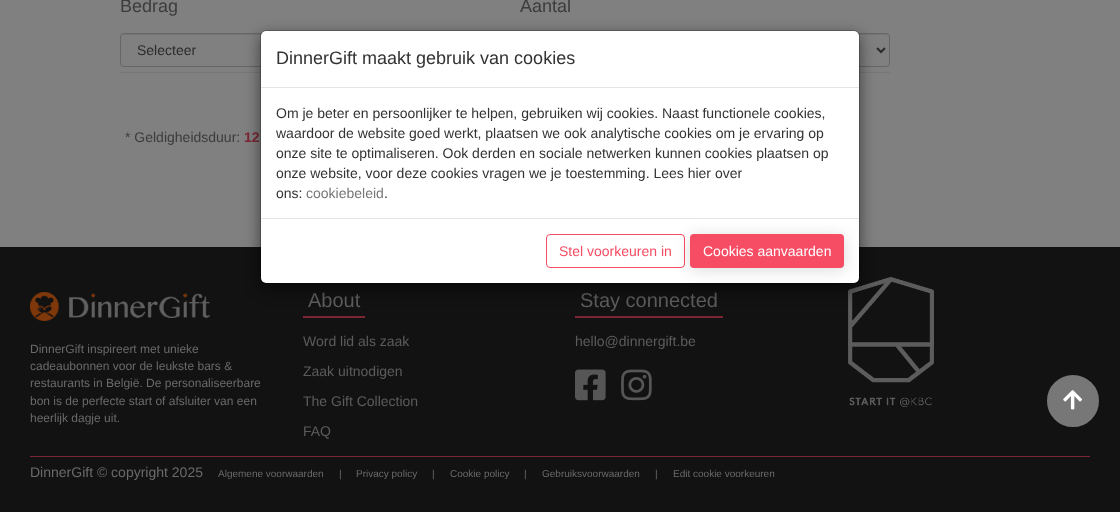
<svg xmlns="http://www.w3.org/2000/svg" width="1120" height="512">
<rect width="100%" height="100%" fill="#808080"/>
<text x="120" y="12" style="font-family:Liberation Sans;font-size:18px;fill:#3c3c3c">Bedrag</text>
<text x="520" y="12" style="font-family:Liberation Sans;font-size:18px;fill:#3c3c3c">Aantal</text>
<path d="M124 35h362c2 0 3 1 3 3c0-2-1-4-3-4h-362l-2 1l-1 3c0-2 1-3 3-3z" fill="#767676"/>
<rect x="120.5" y="33.5" width="369" height="33" rx="3.5" fill="none" stroke="#666"/>
<text x="137" y="55" style="font-family:Liberation Sans;font-size:14px;fill:#2b2b2b">Selecteer</text>
<path d="M524 35h362c2 0 3 1 3 3c0-2-1-4-3-4h-362l-2 1l-1 3c0-2 1-3 3-3z" fill="#767676"/>
<rect x="520.5" y="33.5" width="369" height="33" rx="3.5" fill="none" stroke="#666"/>
<path d="M877 48l4 4l4-4" fill="none" stroke="#2b2b2b" stroke-width="2"/>
<rect x="120" y="72" width="770" height="1" fill="#777"/>
<text x="125" y="142" style="font-family:Liberation Sans;font-size:14px;fill:#3c3c3c">* Geldigheidsduur:</text>
<text x="244" y="142" style="font-family:Liberation Sans;font-size:14px;font-weight:bold;fill:#7b2632">12</text>
<rect y="247" width="1120" height="265" fill="#121212"/>
<text x="308" y="307" style="font-family:Liberation Sans;font-size:20px;fill:#5c5c5c">About</text>
<rect x="303" y="316" width="62" height="2" fill="#7b2632"/>
<text x="303" y="346" style="font-family:Liberation Sans;font-size:14px;fill:#5c5c5c">Word lid als zaak</text>
<text x="303" y="376" style="font-family:Liberation Sans;font-size:14px;fill:#5c5c5c">Zaak uitnodigen</text>
<text x="303" y="406" style="font-family:Liberation Sans;font-size:14px;fill:#5c5c5c">The Gift Collection</text>
<text x="303" y="436" style="font-family:Liberation Sans;font-size:14px;fill:#5c5c5c">FAQ</text>
<text x="580" y="307" style="font-family:Liberation Sans;font-size:20px;fill:#5c5c5c">Stay connected</text>
<rect x="575" y="316" width="148" height="2" fill="#7b2632"/>
<text x="575" y="346" style="font-family:Liberation Sans;font-size:14px;fill:#5c5c5c">hello@dinnergift.be</text>
<image x="575" y="369" width="31" height="32" href="media/1.png"/>
<image x="621" y="369" width="31" height="32" href="media/2.png"/>
<image x="848" y="277" width="86" height="130" href="media/3.png"/>
<image x="30" y="292" width="180" height="29" href="media/4.png"/>
<text x="30" y="353" style="font-family:Liberation Sans;font-size:12px;fill:#6a6a6a">DinnerGift inspireert met unieke</text>
<text x="30" y="370" style="font-family:Liberation Sans;font-size:12px;fill:#6a6a6a">cadeaubonnen voor de leukste bars &amp;</text>
<text x="30" y="387" style="font-family:Liberation Sans;font-size:12px;fill:#6a6a6a">restaurants in België. De personaliseerbare</text>
<text x="30" y="405" style="font-family:Liberation Sans;font-size:12px;fill:#6a6a6a">bon is de perfecte start of afsluiter van een</text>
<text x="30" y="422" style="font-family:Liberation Sans;font-size:12px;fill:#6a6a6a">heerlijk dagje uit.</text>
<rect x="30" y="456" width="1060" height="1" fill="#7b2632"/>
<text x="30" y="477" style="font-family:Liberation Sans;font-size:14px;fill:#6a6a6a">DinnerGift © copyright 2025</text>
<text x="218" y="477" style="font-family:Liberation Sans;font-size:10px;fill:#6a6a6a">Algemene voorwaarden</text>
<text x="339" y="477" style="font-family:Liberation Sans;font-size:10px;fill:#6a6a6a">|</text>
<text x="356" y="477" style="font-family:Liberation Sans;font-size:10px;fill:#6a6a6a">Privacy policy</text>
<text x="432" y="477" style="font-family:Liberation Sans;font-size:10px;fill:#6a6a6a">|</text>
<text x="450" y="477" style="font-family:Liberation Sans;font-size:10px;fill:#6a6a6a">Cookie policy</text>
<text x="524" y="477" style="font-family:Liberation Sans;font-size:10px;fill:#6a6a6a">|</text>
<text x="542" y="477" style="font-family:Liberation Sans;font-size:10px;fill:#6a6a6a">Gebruiksvoorwaarden</text>
<text x="655" y="477" style="font-family:Liberation Sans;font-size:10px;fill:#6a6a6a">|</text>
<text x="673" y="477" style="font-family:Liberation Sans;font-size:10px;fill:#6a6a6a">Edit cookie voorkeuren</text>
<circle cx="1073" cy="401" r="25" fill="#777" stroke="#777" stroke-width="2"/>
<image x="1063" y="390" width="19" height="20" href="media/5.png"/>
<rect x="260" y="35" width="600" height="254" rx="6" fill="#00000080" filter="blur(7.5px)"/>
<rect x="261" y="31" width="598" height="252" rx="5" fill="#fff"/>
<rect x="260.5" y="30.5" width="599" height="253" rx="5.5" fill="none" stroke="#00000033"/>
<rect x="261" y="87" width="598" height="1" fill="#e5e5e5"/>
<text x="276" y="64" style="font-family:Liberation Sans;font-size:18px;fill:#333">DinnerGift maakt gebruik van cookies</text>
<text x="276" y="118" style="font-family:Liberation Sans;font-size:14px;fill:#333">Om je beter en persoonlijker te helpen, gebruiken wij cookies. Naast functionele cookies,</text>
<text x="276" y="138" style="font-family:Liberation Sans;font-size:14px;fill:#333">waardoor de website goed werkt, plaatsen we ook analytische cookies om je ervaring op</text>
<text x="276" y="158" style="font-family:Liberation Sans;font-size:14px;fill:#333">onze site te optimaliseren. Ook derden en sociale netwerken kunnen cookies plaatsen op</text>
<text x="276" y="178" style="font-family:Liberation Sans;font-size:14px;fill:#333">onze website, voor deze cookies vragen we je toestemming. Lees hier over</text>
<text x="276" y="198" style="font-family:Liberation Sans;font-size:14px;fill:#333">ons:</text>
<text x="306" y="198" style="font-family:Liberation Sans;font-size:14px;fill:#777">cookiebeleid</text>
<text x="384" y="198" style="font-family:Liberation Sans;font-size:14px;fill:#333">.</text>
<rect x="261" y="218" width="598" height="1" fill="#e5e5e5"/>
<rect x="546.5" y="234.5" width="138" height="33" rx="3.5" fill="none" stroke="#f64c64"/>
<text x="559" y="256" style="font-family:Liberation Sans;font-size:14px;fill:#f64c64">Stel voorkeuren in</text>
<rect x="690" y="236" width="154" height="34" rx="4" fill="#00000024" filter="blur(8px)"/>
<rect x="690" y="234" width="154" height="34" rx="4" fill="#f64c64"/>
<text x="703" y="256" style="font-family:Liberation Sans;font-size:14px;fill:#fff">Cookies aanvaarden</text>
</svg>
